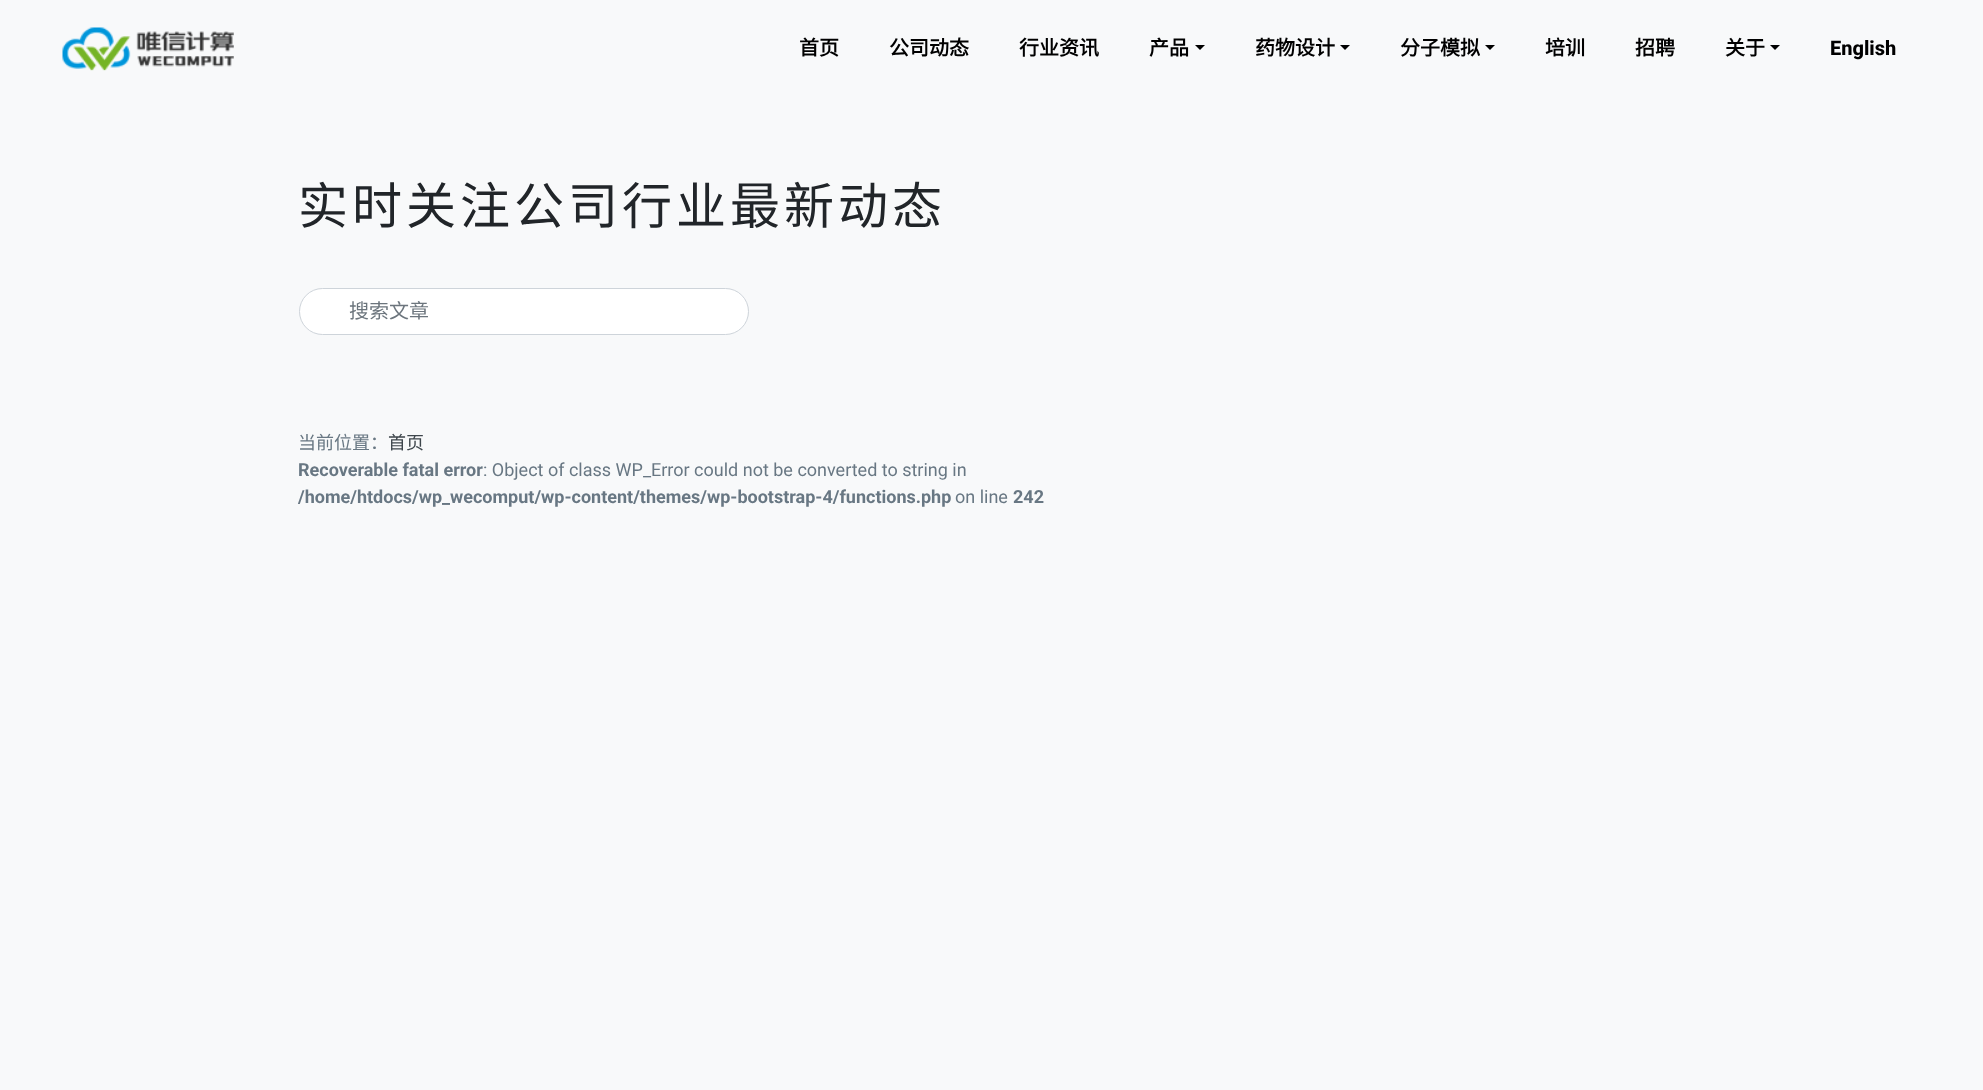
<svg xmlns="http://www.w3.org/2000/svg" width="1983" height="1090">
<rect width="100%" height="100%" fill="#f8f9fa"/>
<image x="62" y="27" width="172" height="44" href="media/1.png"/>
<text x="799" y="55" style="font-family:Noto Sans CJK SC;font-size:20px;font-weight:bold;fill:#000">首页</text>
<text x="889" y="55" style="font-family:Noto Sans CJK SC;font-size:20px;font-weight:bold;fill:#000">公司动态</text>
<text x="1019" y="55" style="font-family:Noto Sans CJK SC;font-size:20px;font-weight:bold;fill:#000">行业资讯</text>
<text x="1149" y="55" style="font-family:Noto Sans CJK SC;font-size:20px;font-weight:bold;fill:#000">产品</text>
<path d="M1195 45h10l-5 5z" fill="#000"/>
<text x="1255" y="55" style="font-family:Noto Sans CJK SC;font-size:20px;font-weight:bold;fill:#000">药物设计</text>
<path d="M1340 45h10l-5 5z" fill="#000"/>
<text x="1400" y="55" style="font-family:Noto Sans CJK SC;font-size:20px;font-weight:bold;fill:#000">分子模拟</text>
<path d="M1485 45h10l-5 5z" fill="#000"/>
<text x="1545" y="55" style="font-family:Noto Sans CJK SC;font-size:20px;font-weight:bold;fill:#000">培训</text>
<text x="1635" y="55" style="font-family:Noto Sans CJK SC;font-size:20px;font-weight:bold;fill:#000">招聘</text>
<text x="1725" y="55" style="font-family:Noto Sans CJK SC;font-size:20px;font-weight:bold;fill:#000">关于</text>
<path d="M1770 45h10l-5 5z" fill="#000"/>
<text x="1830" y="55" style="font-family:Roboto;font-size:20px;font-weight:800;fill:#000">English</text>
<text x="298" y="224" style="font-family:Noto Sans CJK SC;font-size:50px;letter-spacing:4px;fill:#212529">实时关注公司行业最新动态</text>
<rect x="299.5" y="288.5" width="449" height="46" rx="23" fill="#fff" stroke="#ced4da"/>
<text x="349" y="318" style="font-family:Noto Sans CJK SC;font-size:20px;fill:#6c757d">搜索文章</text>
<text x="298" y="449" style="font-family:Noto Sans CJK SC;font-size:18px;fill:#687783">当前位置：</text>
<text x="388" y="449" style="font-family:Noto Sans CJK SC;font-size:18px;fill:#3e464c">首页</text>
<text x="298" y="476" style="font-family:Roboto;font-size:18px;font-weight:bold;fill:#687783">Recoverable fatal error</text>
<text x="483" y="476" style="font-family:Roboto;font-size:18px;fill:#687783">: Object of class WP_Error could not be converted to string in</text>
<text x="298" y="503" style="font-family:Roboto;font-size:18px;font-weight:bold;fill:#687783">/home/htdocs/wp_wecomput/wp-content/themes/wp-bootstrap-4/functions.php</text>
<text x="955" y="503" style="font-family:Roboto;font-size:18px;fill:#687783">on line</text>
<text x="1013" y="503" style="font-family:Roboto;font-size:18px;font-weight:bold;fill:#687783">242</text>
</svg>
